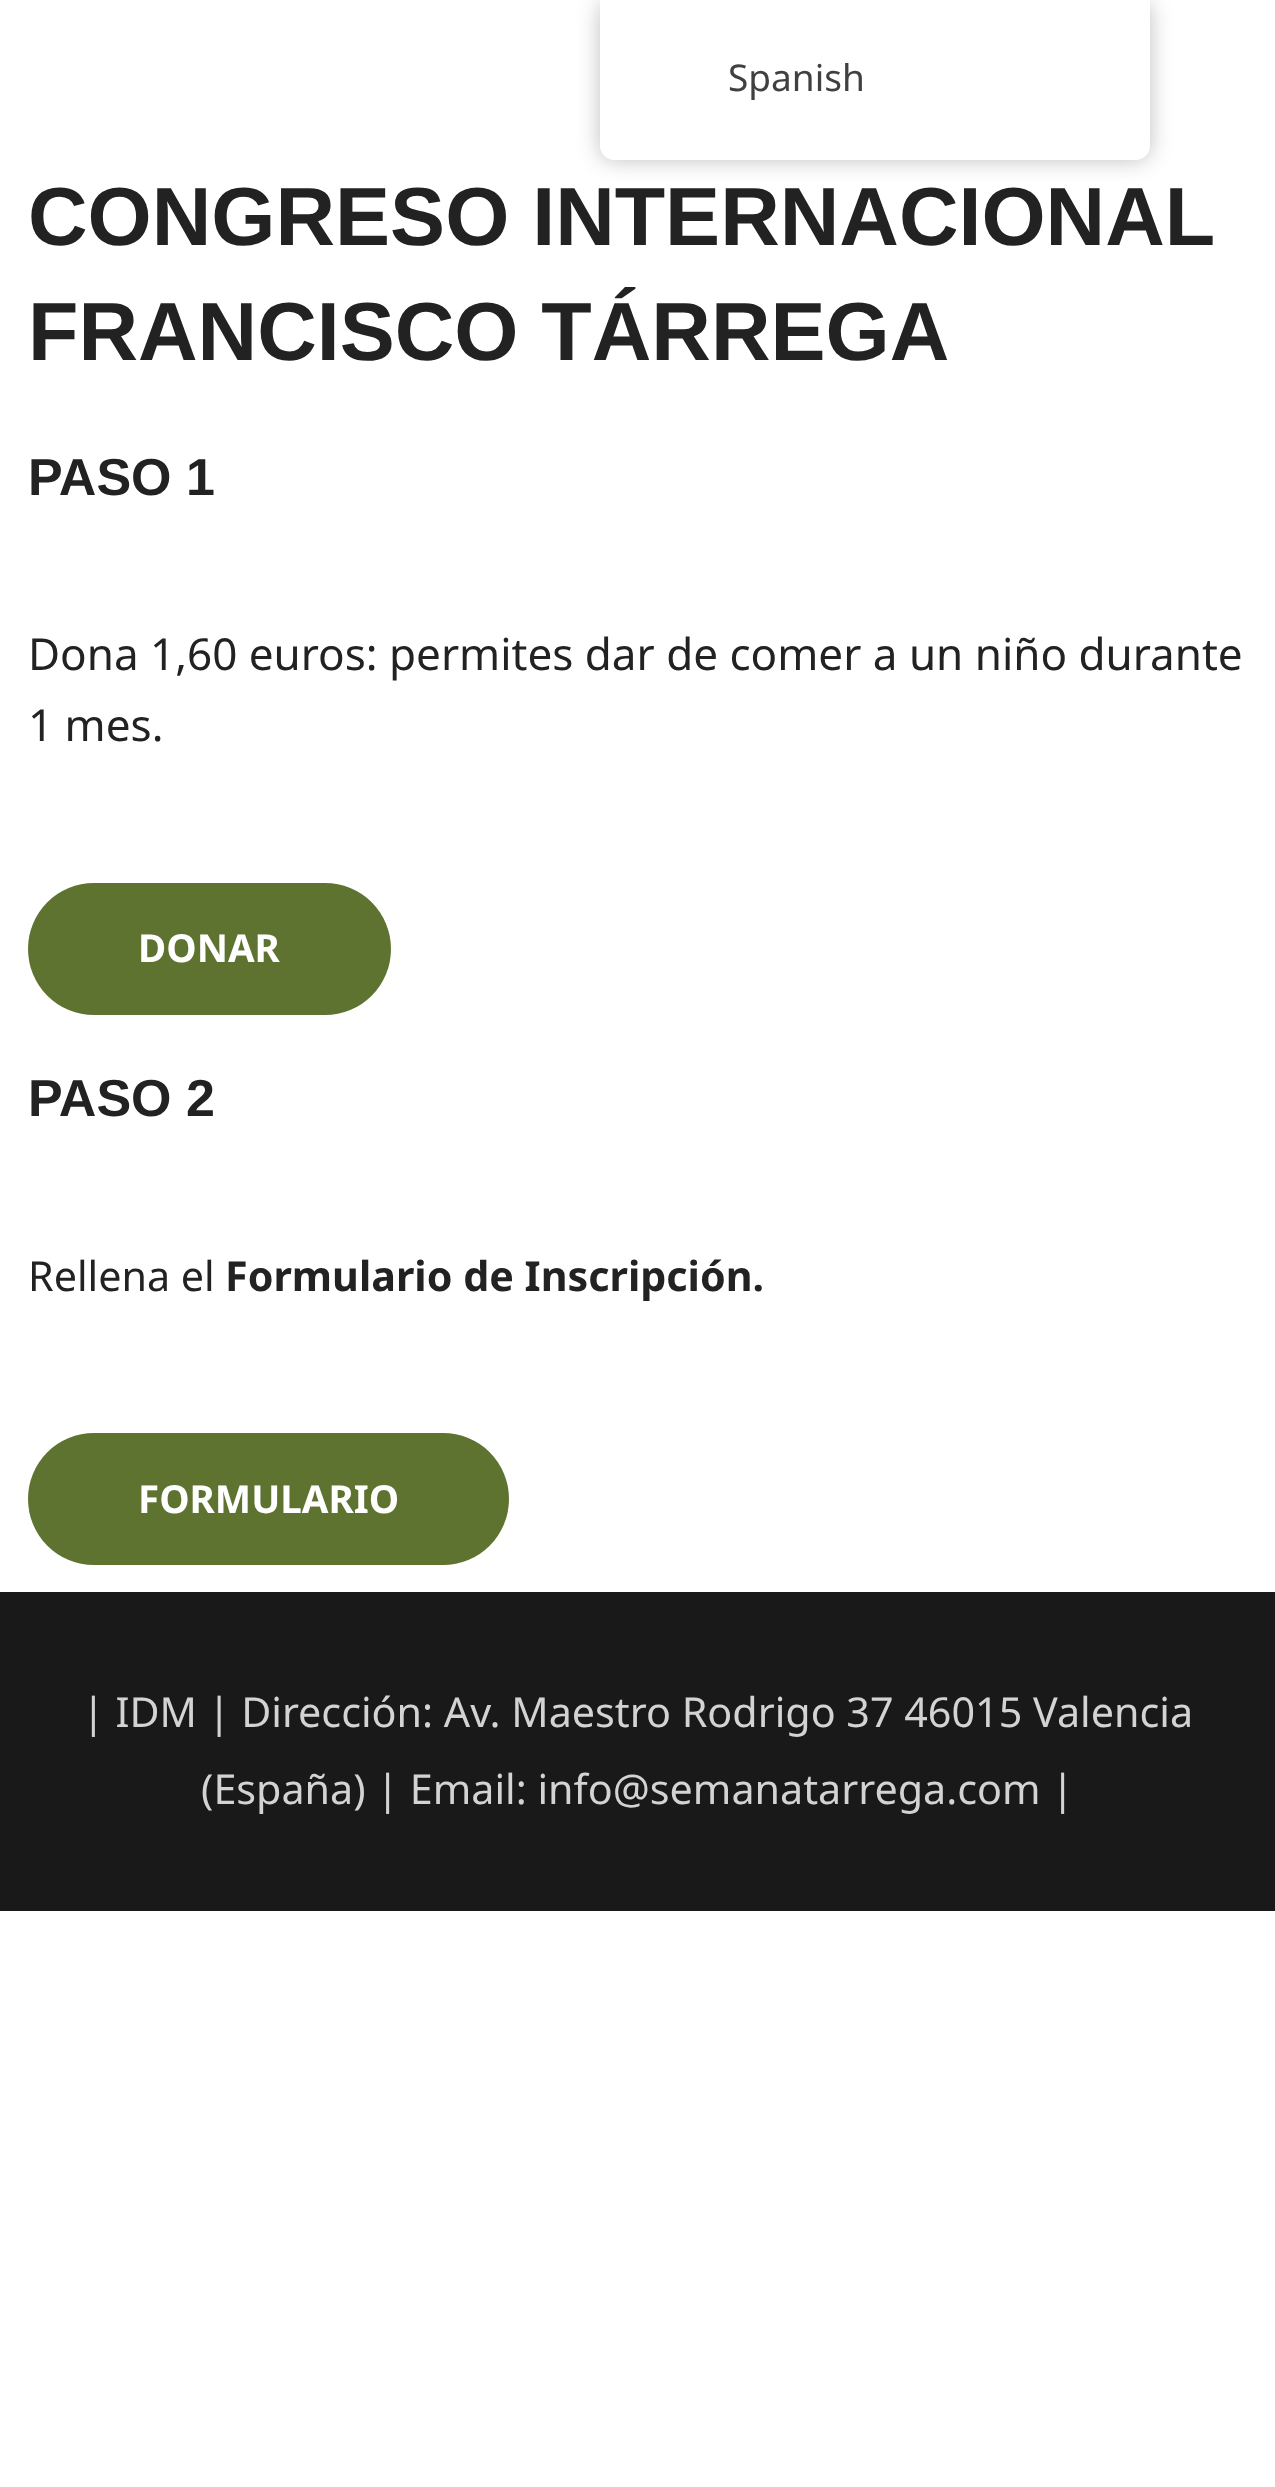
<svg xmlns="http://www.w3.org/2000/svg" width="1275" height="2487">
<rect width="100%" height="100%" fill="#fff"/>
<rect x="600" width="550" height="160" rx="14" fill="#00000040" filter="blur(11px)"/>
<path d="M600 0h550v146c0 7.5-6.5 14-14 14h-522c-7.5 0-14-6.5-14-14z" fill="#fff"/>
<text x="728" y="91" style="font-family:Noto Sans;font-size:37px;fill:#404040">Spanish</text>
<text x="28" y="245" style="font-family:Liberation Sans;font-size:82.5px;font-weight:bold;fill:#222">CONGRESO INTERNACIONAL</text>
<text x="28" y="360" style="font-family:Liberation Sans;font-size:82.5px;font-weight:bold;fill:#222">FRANCISCO TÁRREGA</text>
<text x="28" y="495" style="font-family:Liberation Sans;font-size:52px;font-weight:bold;fill:#222">PASO 1</text>
<text x="28" y="670" style="font-family:Noto Sans;font-size:44px;fill:#222">Dona 1,60 euros: permites dar de comer a un niño durante</text>
<text x="28" y="741" style="font-family:Noto Sans;font-size:44px;fill:#222">1 mes.</text>
<rect x="28" y="883" width="363" height="132" rx="66" fill="#5d732f"/>
<text x="138" y="962" style="font-family:Noto Sans;font-size:38.5px;font-weight:bold;fill:#fff">DONAR</text>
<text x="28" y="1116" style="font-family:Liberation Sans;font-size:52px;font-weight:bold;fill:#222">PASO 2</text>
<text x="28" y="1291" style="font-family:Noto Sans;font-size:41.25px;fill:#222">Rellena el</text>
<text x="225" y="1291" style="font-family:Noto Sans;font-size:41.25px;font-weight:bold;fill:#222">Formulario de Inscripción.</text>
<rect x="28" y="1433" width="481" height="132" rx="66" fill="#5d732f"/>
<text x="138" y="1513" style="font-family:Noto Sans;font-size:38.5px;font-weight:bold;fill:#fff">FORMULARIO</text>
<rect y="1592" width="1275" height="319" fill="#191919"/>
<text x="82" y="1727" style="font-family:Noto Sans;font-size:41.25px;fill:#d3d3d3">| IDM | Dirección: Av. Maestro Rodrigo 37 46015 Valencia</text>
<text x="201" y="1804" style="font-family:Noto Sans;font-size:41.25px;fill:#d3d3d3">(España) | Email: info@semanatarrega.com |</text>
</svg>
